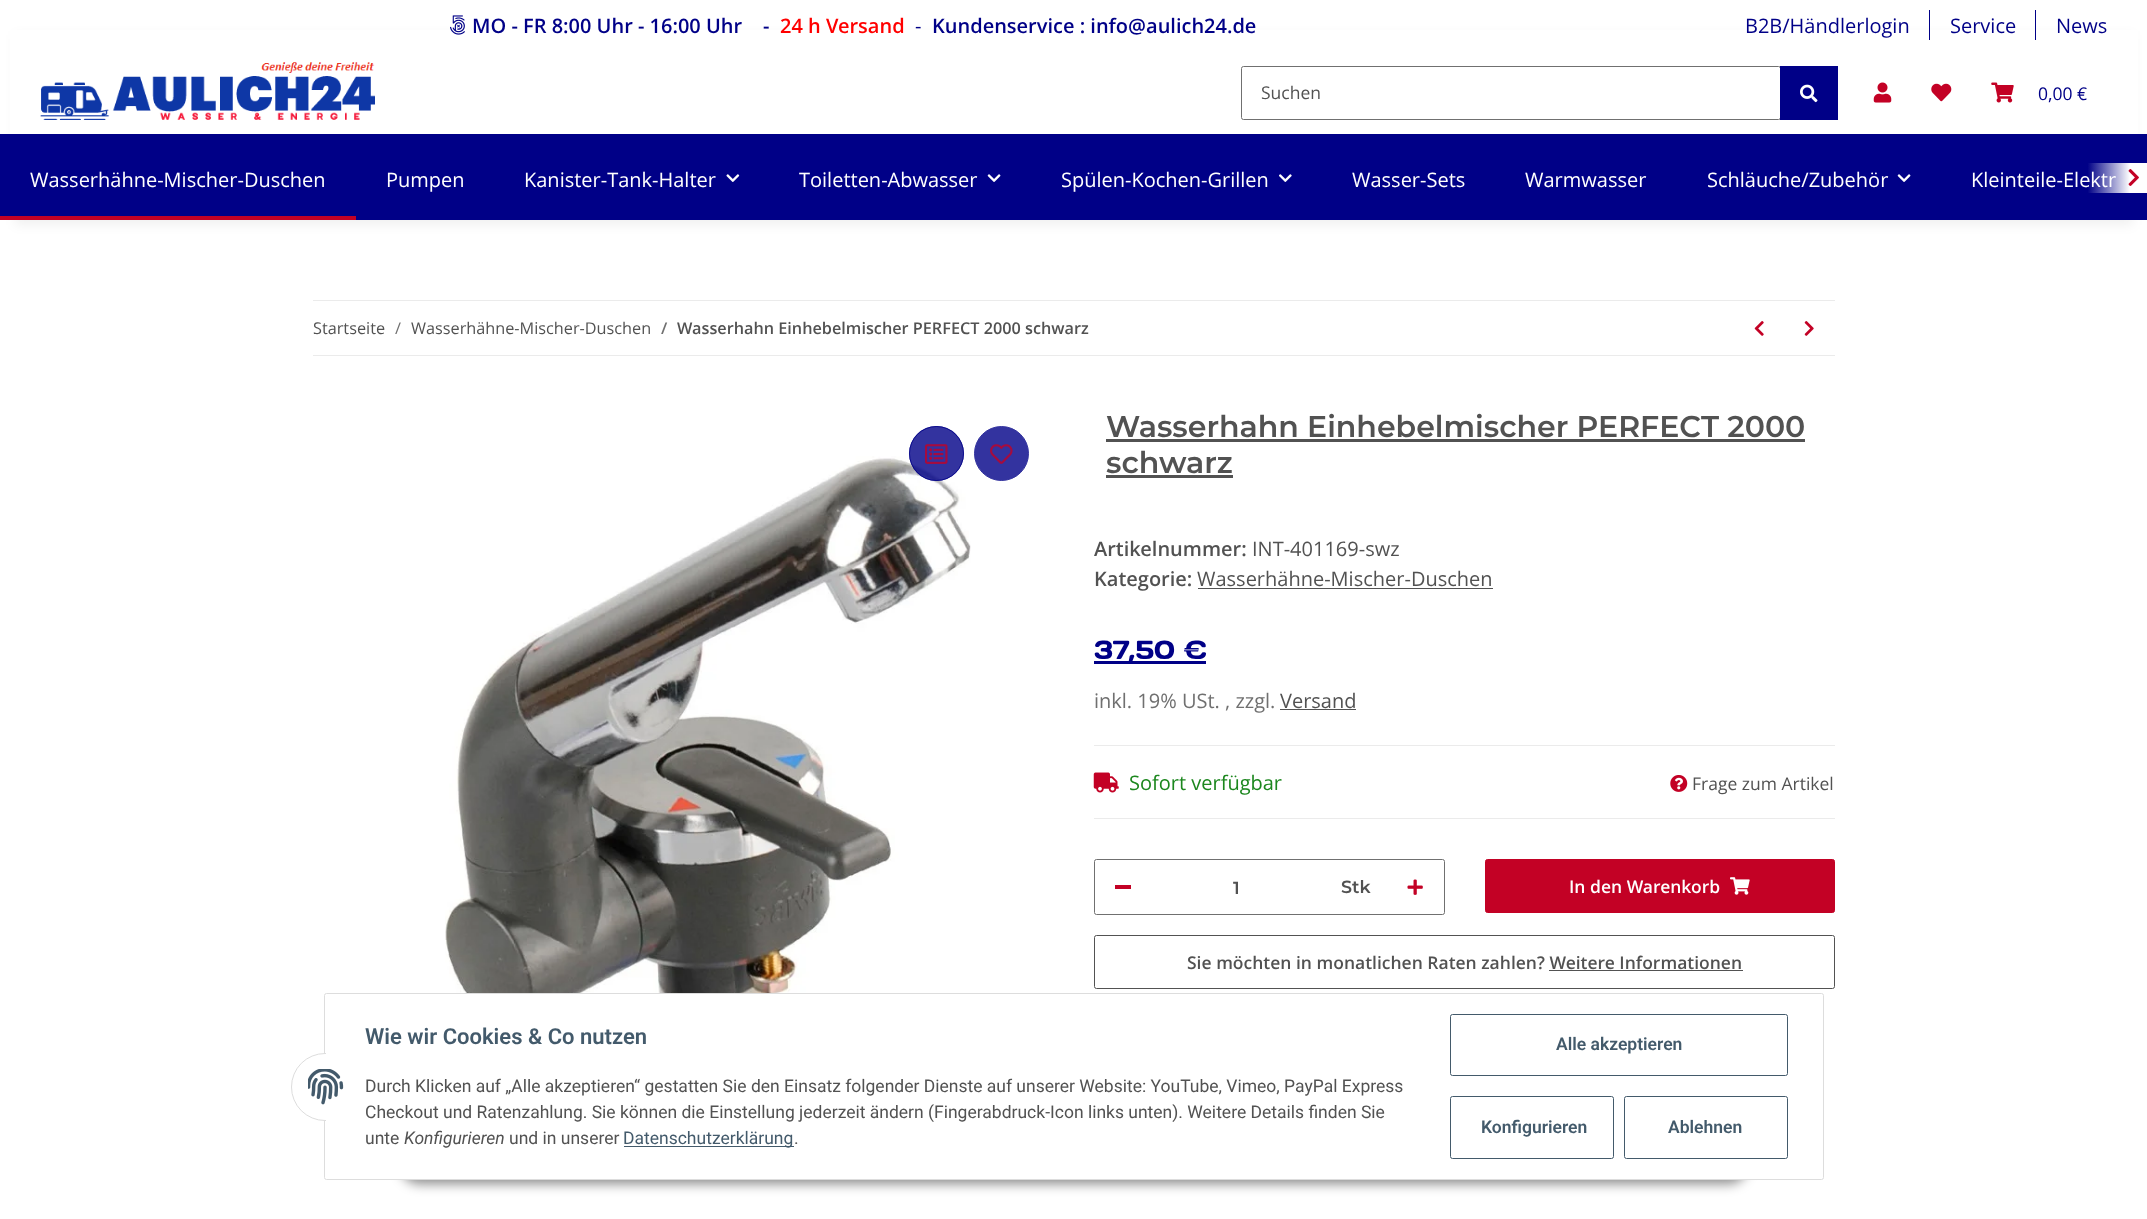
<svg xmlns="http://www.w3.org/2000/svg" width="2147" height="1219">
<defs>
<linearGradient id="g1" gradientUnits="userSpaceOnUse" x1="2088" y1="178" x2="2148" y2="178"><stop offset="0" stop-color="#fff" stop-opacity="0.01"/><stop offset="0.7" stop-color="#fff"/></linearGradient>
</defs>
<rect width="100%" height="100%" fill="#fff"/>
<rect x="15" y="35" width="2118" height="190" fill="#0000000f" filter="blur(5.5px)"/>
<rect x="10" y="30" width="2128" height="104" fill="#fff"/>
<image x="450" y="15" width="15" height="20" href="media/1.png"/>
<text x="472" y="33" style="font-family:Open Sans;font-size:20px;font-weight:600;fill:#000087">MO - FR 8:00 Uhr - 16:00 Uhr</text>
<text x="763" y="33" style="font-family:Open Sans;font-size:20px;font-weight:600;fill:#000087">-</text>
<text x="780" y="33" style="font-family:Open Sans;font-size:20px;font-weight:600;fill:#f00">24 h Versand</text>
<text x="915" y="33" style="font-family:Open Sans;font-size:20px;fill:#000087">-</text>
<text x="932" y="33" style="font-family:Open Sans;font-size:20px;font-weight:600;fill:#000087">Kundenservice : info@aulich24.de</text>
<text x="1745" y="33" style="font-family:Open Sans;font-size:20px;fill:#000087">B2B/Händlerlogin</text>
<rect x="1929" y="10" width="1" height="30" fill="#000087"/>
<text x="1950" y="33" style="font-family:Open Sans;font-size:20px;fill:#000087">Service</text>
<rect x="2035" y="10" width="1" height="30" fill="#000087"/>
<text x="2056" y="33" style="font-family:Open Sans;font-size:20px;fill:#000087">News</text>
<image x="40" y="62" width="335" height="58" href="media/2.png"/>
<rect x="1241.5" y="66.5" width="539" height="53" rx="2" fill="none" stroke="#707070"/>
<text x="1261" y="99" style="font-family:Open Sans;font-size:17.5px;fill:#525252">Suchen</text>
<rect x="1780" y="66" width="58" height="54" fill="#000087"/>
<image x="1800" y="84" width="18" height="19" href="media/3.png"/>
<image x="1873" y="82" width="19" height="21" href="media/4.png"/>
<image x="1931" y="83" width="21" height="19" href="media/5.png"/>
<image x="1991" y="82" width="23" height="21" href="media/6.png"/>
<text x="2038" y="100" style="font-family:Open Sans;font-size:17.5px;fill:#000087">0,00 €</text>
<rect y="134" width="2147" height="86" fill="#000087"/>
<text x="30" y="187" style="font-family:Open Sans;font-size:20px;fill:#fff">Wasserhähne-Mischer-Duschen</text>
<rect y="216" width="356" height="4" fill="#c30125"/>
<text x="386" y="187" style="font-family:Open Sans;font-size:20px;fill:#fff">Pumpen</text>
<text x="524" y="187" style="font-family:Open Sans;font-size:20px;fill:#fff">Kanister-Tank-Halter</text>
<image x="726" y="174" width="14" height="8" href="media/7.png"/>
<text x="799" y="187" style="font-family:Open Sans;font-size:20px;fill:#fff">Toiletten-Abwasser</text>
<image x="987" y="174" width="14" height="8" href="media/8.png"/>
<text x="1061" y="187" style="font-family:Open Sans;font-size:20px;fill:#fff">Spülen-Kochen-Grillen</text>
<image x="1279" y="174" width="13" height="8" href="media/9.png"/>
<text x="1352" y="187" style="font-family:Open Sans;font-size:20px;fill:#fff">Wasser-Sets</text>
<text x="1525" y="187" style="font-family:Open Sans;font-size:20px;fill:#fff">Warmwasser</text>
<text x="1707" y="187" style="font-family:Open Sans;font-size:20px;fill:#fff">Schläuche/Zubehör</text>
<image x="1897" y="174" width="14" height="8" href="media/8.png"/>
<text x="1971" y="187" style="font-family:Open Sans;font-size:20px;fill:#fff">Kleinteile-Elektr</text>
<rect x="2088" y="163" width="59" height="30" fill="url(#g1)"/>
<image x="2128" y="169" width="11" height="17" href="media/10.png"/>
<rect x="313" y="300" width="1522" height="1" fill="#ebebeb"/>
<rect x="313" y="355" width="1522" height="1" fill="#ebebeb"/>
<text x="313" y="334" style="font-family:Open Sans;font-size:16.25px;fill:#525252">Startseite</text>
<text x="395" y="334" style="font-family:Open Sans;font-size:16.25px;fill:#707070">/</text>
<text x="411" y="334" style="font-family:Open Sans;font-size:16.25px;fill:#525252">Wasserhähne-Mischer-Duschen</text>
<text x="661" y="334" style="font-family:Open Sans;font-size:16.25px;font-weight:600;fill:#707070">/</text>
<text x="677" y="334" style="font-family:Open Sans;font-size:16.25px;font-weight:600;fill:#525252">Wasserhahn Einhebelmischer PERFECT 2000 schwarz</text>
<image x="1754" y="321" width="10" height="15" href="media/11.png"/>
<image x="1804" y="321" width="10" height="15" href="media/12.png"/>
<image x="445" y="456" width="526" height="537" href="media/15.png"/>
<circle cx="936.5" cy="453.5" r="27.5" fill="#000087cc"/>
<circle cx="936.5" cy="453.5" r="27" fill="none" stroke="#000087cc"/>
<image x="925" y="444" width="23" height="20" href="media/13.png"/>
<circle cx="1001.5" cy="453.5" r="27" fill="#33339f" stroke="#33339f"/>
<image x="990" y="444" width="23" height="20" href="media/14.png"/>
<text x="1106" y="437" style="font-family:Montserrat;font-size:30px;font-weight:600;fill:#525252">Wasserhahn Einhebelmischer PERFECT 2000</text>
<rect x="1106" y="439" width="699" height="3" fill="#525252"/>
<text x="1106" y="473" style="font-family:Montserrat;font-size:30px;font-weight:600;fill:#525252">schwarz</text>
<rect x="1106" y="475" width="127" height="3" fill="#525252"/>
<text x="1094" y="556" style="font-family:Open Sans;font-size:20px;font-weight:600;fill:#525252">Artikelnummer:</text>
<text x="1252" y="556" style="font-family:Open Sans;font-size:20px;fill:#525252">INT-401169-swz</text>
<text x="1094" y="586" style="font-family:Open Sans;font-size:20px;font-weight:600;fill:#525252">Kategorie:</text>
<text x="1197" y="586" style="font-family:Open Sans;font-size:20px;fill:#525252">Wasserhähne-Mischer-Duschen</text>
<rect x="1198" y="588" width="295" height="1" fill="#525252"/>
<rect x="1094" y="661" width="112" height="3" fill="#000087"/>
<text x="1094" y="659" style="font-family:Days One;font-size:26.25px;fill:#000087">37,50 €</text>
<text x="1094" y="708" style="font-family:Open Sans;font-size:20px;fill:#707070">inkl. 19% USt. , zzgl.</text>
<text x="1280" y="708" style="font-family:Open Sans;font-size:20px;fill:#525252">Versand</text>
<rect x="1280" y="709" width="76" height="1" fill="#525252"/>
<rect x="1094" y="745" width="741" height="1" fill="#ebebeb"/>
<rect x="1094" y="818" width="741" height="1" fill="#ebebeb"/>
<image x="1093" y="772" width="26" height="21" href="media/16.png"/>
<text x="1129" y="790" style="font-family:Open Sans;font-size:20px;fill:#1c871e">Sofort verfügbar</text>
<image x="1670" y="775" width="18" height="17" href="media/17.png"/>
<text x="1692" y="790" style="font-family:Open Sans;font-size:17.5px;fill:#525252">Frage zum Artikel</text>
<rect x="1094.5" y="859.5" width="350" height="55" rx="2" fill="none" stroke="#707070"/>
<rect x="1115" y="885" width="16" height="4" fill="#c30125"/>
<text x="1233" y="894" style="font-family:Montserrat;font-size:17.5px;font-weight:600;fill:#525252">1</text>
<text x="1341" y="893" style="font-family:Montserrat;font-size:17.5px;font-weight:600;fill:#525252">Stk</text>
<image x="1407" y="879" width="16" height="16" href="media/18.png"/>
<rect x="1485.5" y="859.5" width="349" height="53" rx="2" fill="#c30125" stroke="#c30125"/>
<text x="1569" y="893" style="font-family:Open Sans;font-size:17.5px;font-weight:600;fill:#fff">In den Warenkorb</text>
<image x="1730" y="877" width="20" height="18" href="media/19.png"/>
<rect x="1094.5" y="935.5" width="740" height="53" rx="2" fill="none" stroke="#525252"/>
<text x="1187" y="969" style="font-family:Open Sans;font-size:17.5px;font-weight:600;fill:#525252">Sie möchten in monatlichen Raten zahlen? Weitere Informationen</text>
<rect x="1549" y="970" width="194" height="1" fill="#525252"/>
<rect x="400" y="1144" width="1348" height="40" rx="20" fill="#00000073" filter="blur(6px)"/>
<rect x="324.5" y="993.5" width="1499" height="186" rx="2" fill="#fff" stroke="#ddd"/>
<rect x="291.5" y="1053.5" width="68" height="67" rx="33.5" fill="#fff" stroke="#ddd"/>
<rect x="326" y="1053" width="34" height="68" fill="#fff"/>
<image x="308" y="1069" width="36" height="36" href="media/20.png"/>
<text x="365" y="1044" style="font-family:Roboto;font-size:22px;font-weight:600;fill:#435a6b">Wie wir Cookies &amp; Co nutzen</text>
<text x="365" y="1092" style="font-family:Roboto;font-size:17.5px;fill:#525252">Durch Klicken auf „Alle akzeptieren“ gestatten Sie den Einsatz folgender Dienste auf unserer Website: YouTube, Vimeo, PayPal Express</text>
<text x="365" y="1118" style="font-family:Roboto;font-size:17.5px;fill:#525252">Checkout und Ratenzahlung. Sie können die Einstellung jederzeit ändern (Fingerabdruck-Icon links unten). Weitere Details finden Sie</text>
<text x="365" y="1144" style="font-family:Roboto;font-size:17.5px;fill:#525252">unte</text>
<text x="404" y="1144" style="font-family:Roboto;font-size:17.5px;font-style:italic;fill:#525252">Konfigurieren</text>
<text x="509" y="1144" style="font-family:Roboto;font-size:17.5px;fill:#525252">und in unserer</text>
<rect x="624" y="1146" width="170" height="1" fill="#435a6b"/>
<text x="623" y="1144" style="font-family:Roboto;font-size:17.5px;fill:#435a6b">Datenschutzerklärung</text>
<text x="794" y="1144" style="font-family:Roboto;font-size:17.5px;fill:#525252">.</text>
<rect x="1450.5" y="1014.5" width="337" height="61" rx="2" fill="none" stroke="#435a6b"/>
<text x="1556" y="1050" style="font-family:Roboto;font-size:17.5px;font-weight:600;fill:#435a6b">Alle akzeptieren</text>
<rect x="1450.5" y="1096.5" width="163" height="62" rx="2" fill="none" stroke="#435a6b"/>
<text x="1481" y="1133" style="font-family:Roboto;font-size:17.5px;font-weight:600;fill:#435a6b">Konfigurieren</text>
<rect x="1624.5" y="1096.5" width="163" height="62" rx="2" fill="none" stroke="#435a6b"/>
<text x="1668" y="1133" style="font-family:Roboto;font-size:17.5px;font-weight:600;fill:#435a6b">Ablehnen</text>
</svg>
